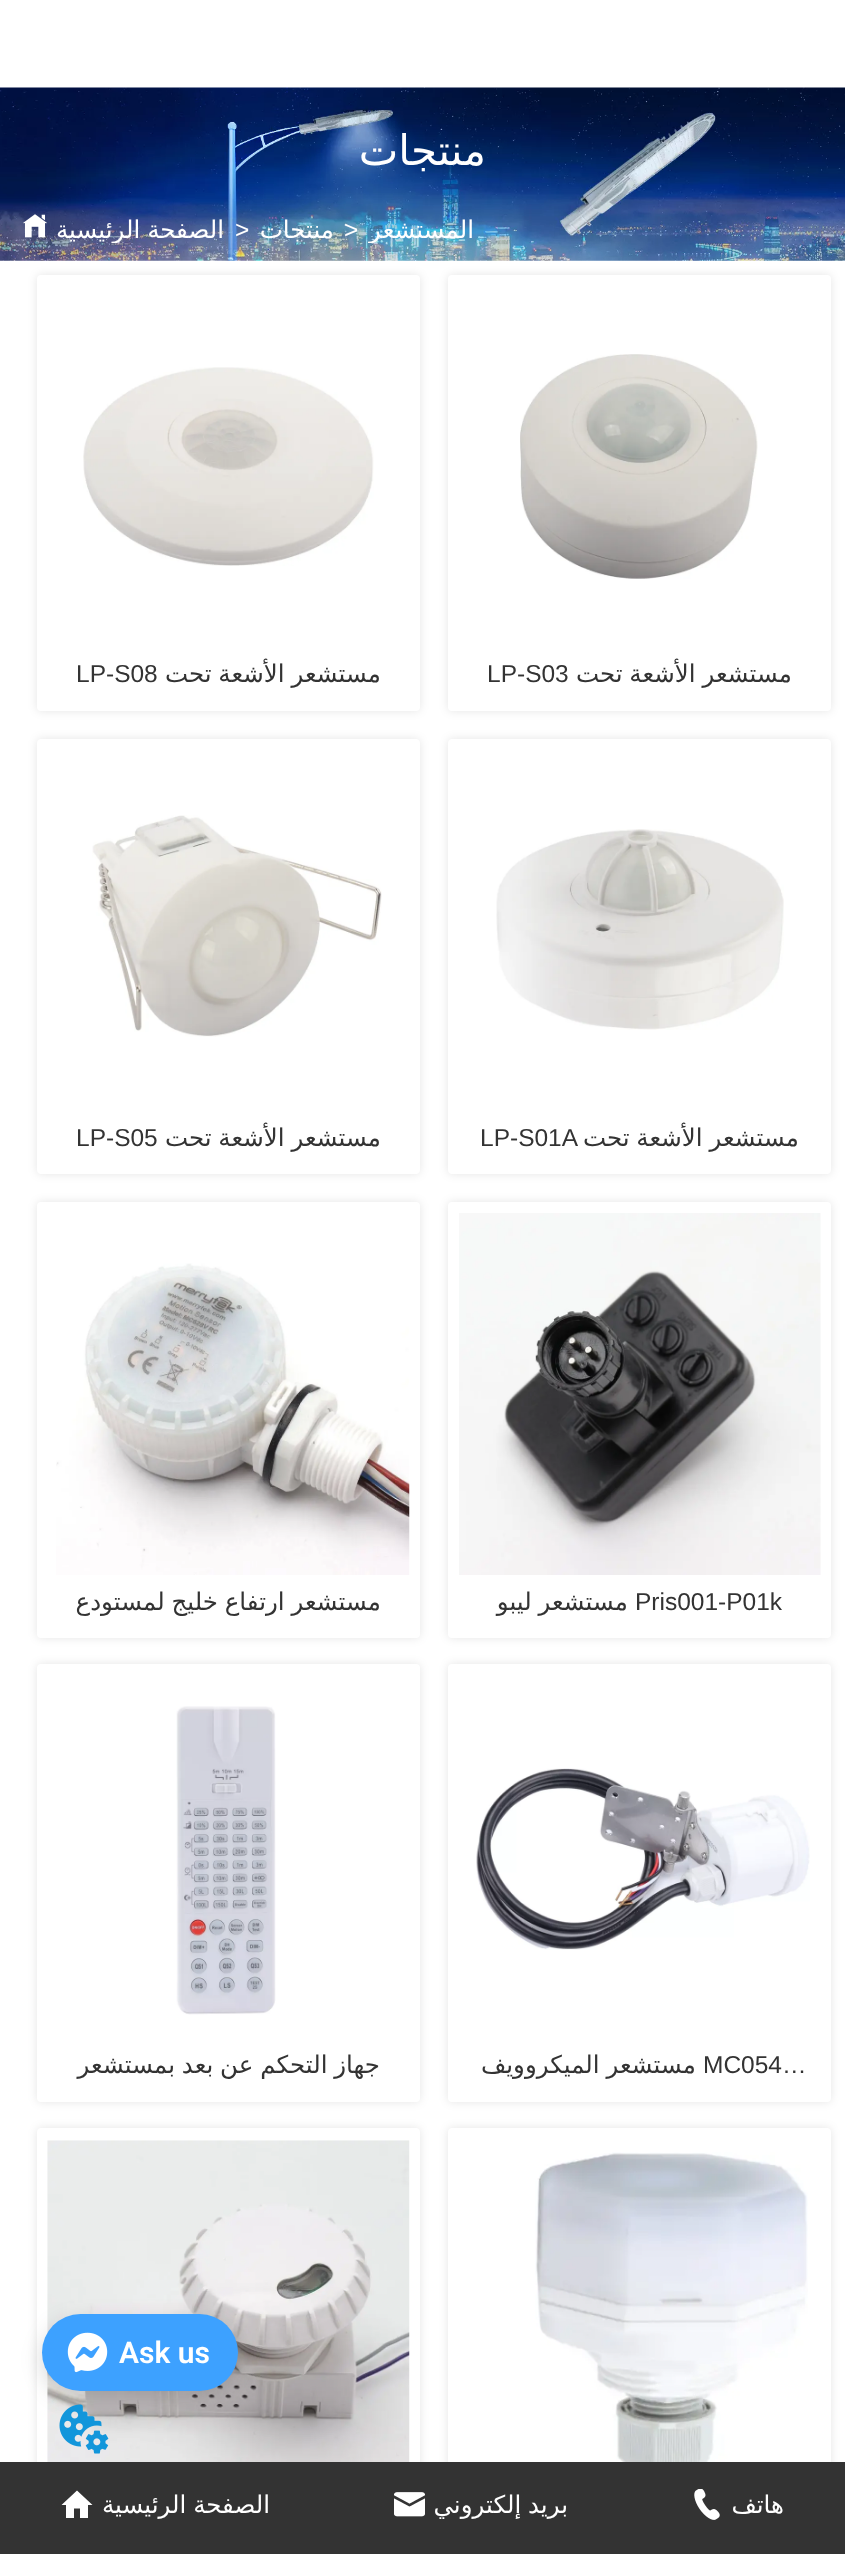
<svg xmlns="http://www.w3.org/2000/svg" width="845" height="2554">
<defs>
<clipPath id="clip1"><rect x="23" y="214" width="822" height="29"/></clipPath>
<clipPath id="clip2"><path d="M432 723h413v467h-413zm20 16h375c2 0 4 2 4 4v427c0 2-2 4-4 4h-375c-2 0-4-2-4-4v-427c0-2 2-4 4-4z" clip-rule="evenodd"/></clipPath>
<clipPath id="clip3"><path d="M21 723h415v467h-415zm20 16h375c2 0 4 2 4 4v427c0 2-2 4-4 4h-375c-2 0-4-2-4-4v-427c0-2 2-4 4-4z" clip-rule="evenodd"/></clipPath>
<clipPath id="clip4"><path d="M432 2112h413v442h-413zm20 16h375c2 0 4 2 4 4v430c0 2-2 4-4 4h-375c-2 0-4-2-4-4v-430c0-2 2-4 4-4z" clip-rule="evenodd"/></clipPath>
<clipPath id="clip5"><path d="M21 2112h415v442h-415zm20 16h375c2 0 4 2 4 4v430c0 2-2 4-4 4h-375c-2 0-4-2-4-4v-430c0-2 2-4 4-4z" clip-rule="evenodd"/></clipPath>
</defs>
<rect width="100%" height="100%" fill="#fff"/>
<image x="0" y="87" width="845" height="174" href="media/1.png"/>
<text x="486" y="165" style="font-family:DejaVu Sans;font-size:42px;direction:rtl;fill:#fff">منتجات</text>
<g clip-path="url(#clip1)">
<text x="474" y="238" style="font-family:DejaVu Sans;font-size:24.5px;direction:rtl;fill:#fff">المستشعر</text>
</g>
<text x="344" y="238" style="font-family:Liberation Sans;font-size:24.5px;fill:#fff">&gt;</text>
<text x="334" y="238" style="font-family:DejaVu Sans;font-size:24.5px;direction:rtl;fill:#fff">منتجات</text>
<text x="235" y="238" style="font-family:Liberation Sans;font-size:24.5px;fill:#fff">&gt;</text>
<g clip-path="url(#clip1)">
<text x="224" y="238" word-spacing="-1" style="font-family:DejaVu Sans;font-size:24.5px;direction:rtl;fill:#fff">الصفحة الرئيسية</text>
</g>
<image x="23" y="214" width="24" height="24" href="media/2.png"/>
<rect x="448" y="275" width="383" height="436" rx="4" fill="#0000001a" filter="blur(5px)"/>
<rect x="448" y="275" width="383" height="436" rx="4" fill="#fff"/>
<image x="520" y="354" width="238" height="225" href="media/3.png"/>
<text x="792" y="682" word-spacing="-1" style="font-family:DejaVu Sans;font-size:24.5px;direction:rtl;fill:#333">مستشعر الأشعة تحت</text>
<text x="487" y="682" style="font-family:Liberation Sans;font-size:24.5px;fill:#333">LP-S03</text>
<rect x="37" y="275" width="383" height="436" rx="4" fill="#0000001a" filter="blur(5px)"/>
<rect x="37" y="275" width="383" height="436" rx="4" fill="#fff"/>
<image x="83" y="367" width="291" height="199" href="media/4.png"/>
<text x="381" y="682" word-spacing="-1" style="font-family:DejaVu Sans;font-size:24.5px;direction:rtl;fill:#333">مستشعر الأشعة تحت</text>
<text x="76" y="682" style="font-family:Liberation Sans;font-size:24.5px;fill:#333">LP-S08</text>
<g clip-path="url(#clip2)">
<rect x="448" y="739" width="383" height="435" rx="4" fill="#0000001a" filter="blur(5px)"/>
</g>
<image x="496" y="829" width="288" height="201" href="media/5.png"/>
<text x="799" y="1146" word-spacing="-1" style="font-family:DejaVu Sans;font-size:24.5px;direction:rtl;fill:#333">مستشعر الأشعة تحت</text>
<text x="480" y="1146" style="font-family:Liberation Sans;font-size:24.5px;fill:#333">LP-S01A</text>
<g clip-path="url(#clip3)">
<rect x="37" y="739" width="383" height="435" rx="4" fill="#0000001a" filter="blur(5px)"/>
</g>
<image x="92" y="815" width="290" height="222" href="media/6.png"/>
<text x="381" y="1146" word-spacing="-1" style="font-family:DejaVu Sans;font-size:24.5px;direction:rtl;fill:#333">مستشعر الأشعة تحت</text>
<text x="76" y="1146" style="font-family:Liberation Sans;font-size:24.5px;fill:#333">LP-S05</text>
<rect x="448" y="1202" width="383" height="436" rx="4" fill="#0000001a" filter="blur(5px)"/>
<rect x="448" y="1202" width="383" height="436" rx="4" fill="#fff"/>
<image x="459" y="1213" width="362" height="362" href="media/7.png"/>
<text x="635" y="1610" style="font-family:Liberation Sans;font-size:24.5px;fill:#333">Pris001-P01k</text>
<text x="628" y="1610" word-spacing="-1" style="font-family:DejaVu Sans;font-size:24.5px;direction:rtl;fill:#333">مستشعر ليبو</text>
<rect x="37" y="1202" width="383" height="436" rx="4" fill="#0000001a" filter="blur(5px)"/>
<rect x="37" y="1202" width="383" height="436" rx="4" fill="#fff"/>
<image x="56" y="1263" width="354" height="312" href="media/8.png"/>
<text x="381" y="1610" word-spacing="-1" style="font-family:DejaVu Sans;font-size:24.5px;direction:rtl;fill:#333">مستشعر ارتفاع خليج لمستودع</text>
<rect x="448" y="1664" width="383" height="438" rx="4" fill="#0000001a" filter="blur(5px)"/>
<rect x="448" y="1664" width="383" height="438" rx="4" fill="#fff"/>
<image x="476" y="1768" width="334" height="182" href="media/9.png"/>
<text x="703" y="2073" style="font-family:Liberation Sans;font-size:24.5px;fill:#333">MC054…</text>
<text x="696" y="2073" word-spacing="-1" style="font-family:DejaVu Sans;font-size:24.5px;direction:rtl;fill:#333">مستشعر الميكروويف</text>
<rect x="37" y="1664" width="383" height="438" rx="4" fill="#0000001a" filter="blur(5px)"/>
<rect x="37" y="1664" width="383" height="438" rx="4" fill="#fff"/>
<image x="176" y="1706" width="100" height="309" href="media/10.png"/>
<text x="380" y="2073" word-spacing="-1" style="font-family:DejaVu Sans;font-size:24.5px;direction:rtl;fill:#333">جهاز التحكم عن بعد بمستشعر</text>
<g clip-path="url(#clip4)">
<rect x="448" y="2128" width="383" height="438" rx="4" fill="#0000001a" filter="blur(5px)"/>
</g>
<image x="535" y="2152" width="273" height="310" href="media/11.png"/>
<g clip-path="url(#clip5)">
<rect x="37" y="2128" width="383" height="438" rx="4" fill="#0000001a" filter="blur(5px)"/>
</g>
<image x="47" y="2140" width="363" height="322" href="media/12.png"/>
<rect y="2462" width="845" height="92" fill="#333"/>
<text x="784" y="2513" style="font-family:DejaVu Sans;font-size:24.5px;direction:rtl;fill:#fff">هاتف</text>
<image x="694" y="2489" width="26" height="31" href="media/13.png"/>
<text x="568" y="2513" word-spacing="-1" style="font-family:DejaVu Sans;font-size:24.5px;direction:rtl;fill:#fff">بريد إلكتروني</text>
<image x="394" y="2492" width="31" height="25" href="media/14.png"/>
<text x="270" y="2513" word-spacing="-1" style="font-family:DejaVu Sans;font-size:24.5px;direction:rtl;fill:#fff">الصفحة الرئيسية</text>
<path d="M74 2518v-9.5h6v9.5h8v-13h4.5l-15.5-14.5l-15.5 14.5h4.5v13z" fill="#fff"/>
<rect x="42" y="2321" width="194" height="77" rx="38.5" fill="#00000026" filter="blur(10.5px)"/>
<rect x="42" y="2314" width="196" height="77" rx="38.5" fill="#3da1ff"/>
<text x="119" y="2363" style="font-family:Roboto;font-size:30px;font-weight:600;fill:#fff">Ask us</text>
<image x="67" y="2332" width="41" height="41" href="media/15.png"/>
<image x="59" y="2404" width="50" height="50" href="media/16.png"/>
</svg>
